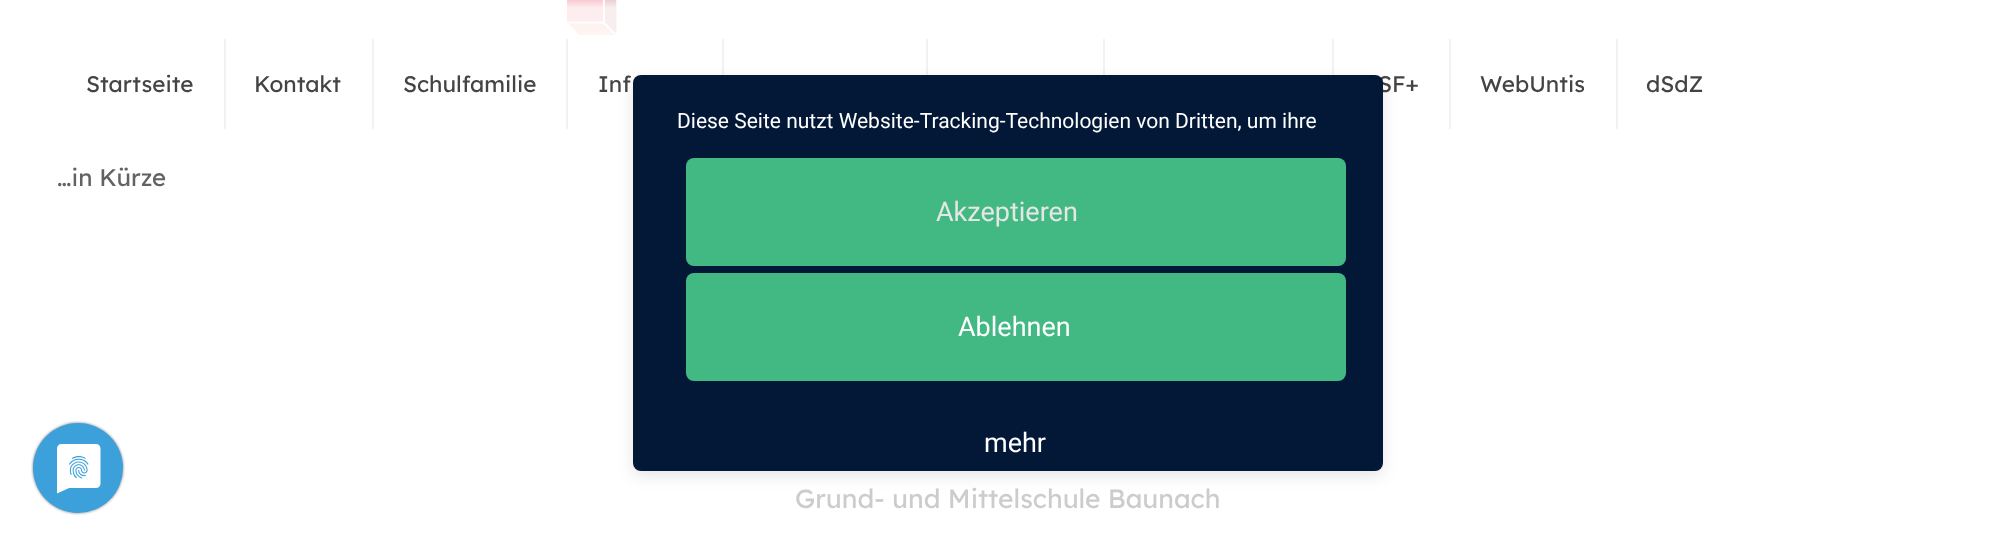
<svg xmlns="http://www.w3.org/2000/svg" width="2014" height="545">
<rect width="100%" height="100%" fill="#fff"/>
<image x="567" y="0" width="50" height="35" href="media/1.png"/>
<rect x="926" y="39" width="2" height="36" fill="#f2f2f2"/>
<rect x="1103" y="39" width="2" height="36" fill="#f2f2f2"/>
<rect x="1332" y="39" width="2" height="36" fill="#f2f2f2"/>
<rect x="224" y="39" width="2" height="90" fill="#f2f2f2"/>
<text x="86" y="92" style="font-family:Lexend;font-size:22.5px;fill:#444">Startseite</text>
<rect x="372" y="39" width="2" height="90" fill="#f2f2f2"/>
<text x="254" y="92" style="font-family:Lexend;font-size:22.5px;fill:#444">Kontakt</text>
<rect x="566" y="39" width="2" height="90" fill="#f2f2f2"/>
<text x="403" y="92" style="font-family:Lexend;font-size:22.5px;fill:#444">Schulfamilie</text>
<rect x="722" y="39" width="2" height="36" fill="#f2f2f2"/>
<text x="598" y="92" style="font-family:Lexend;font-size:22.5px;fill:#444">Inf</text>
<rect x="1449" y="39" width="2" height="90" fill="#f2f2f2"/>
<text x="1378" y="92" style="font-family:Lexend;font-size:22.5px;fill:#444">SF+</text>
<rect x="1616" y="39" width="2" height="90" fill="#f2f2f2"/>
<text x="1480" y="92" style="font-family:Lexend;font-size:22.5px;fill:#444">WebUntis</text>
<text x="1646" y="92" style="font-family:Lexend;font-size:22.5px;fill:#444">dSdZ</text>
<text x="57" y="186" style="font-family:Lexend;font-size:24px;fill:#626262">…in Kürze</text>
<text x="795" y="508" style="font-family:Lexend;font-size:26.4px;fill:#ccc">Grund- und Mittelschule Baunach</text>
<rect x="633" y="80" width="750" height="396" rx="8" fill="#0000001a" filter="blur(7.5px)"/>
<rect x="633" y="75" width="750" height="396" rx="8" fill="#021836"/>
<text x="677" y="128" style="font-family:Roboto;font-size:21px;fill:#fff">Diese Seite nutzt Website-Tracking-Technologien von Dritten, um ihre</text>
<rect x="686" y="158" width="660" height="108" rx="8" fill="#42b983"/>
<text x="936" y="221" style="font-family:Roboto;font-size:27px;fill:#e6e6e6">Akzeptieren</text>
<rect x="686" y="273" width="660" height="108" rx="8" fill="#42b983"/>
<text x="958" y="336" style="font-family:Roboto;font-size:27px;fill:#fff">Ablehnen</text>
<text x="984" y="452" style="font-family:Roboto;font-size:27px;fill:#fff">mehr</text>
<image x="31" y="421" width="94" height="94" href="media/2.png"/>
</svg>
